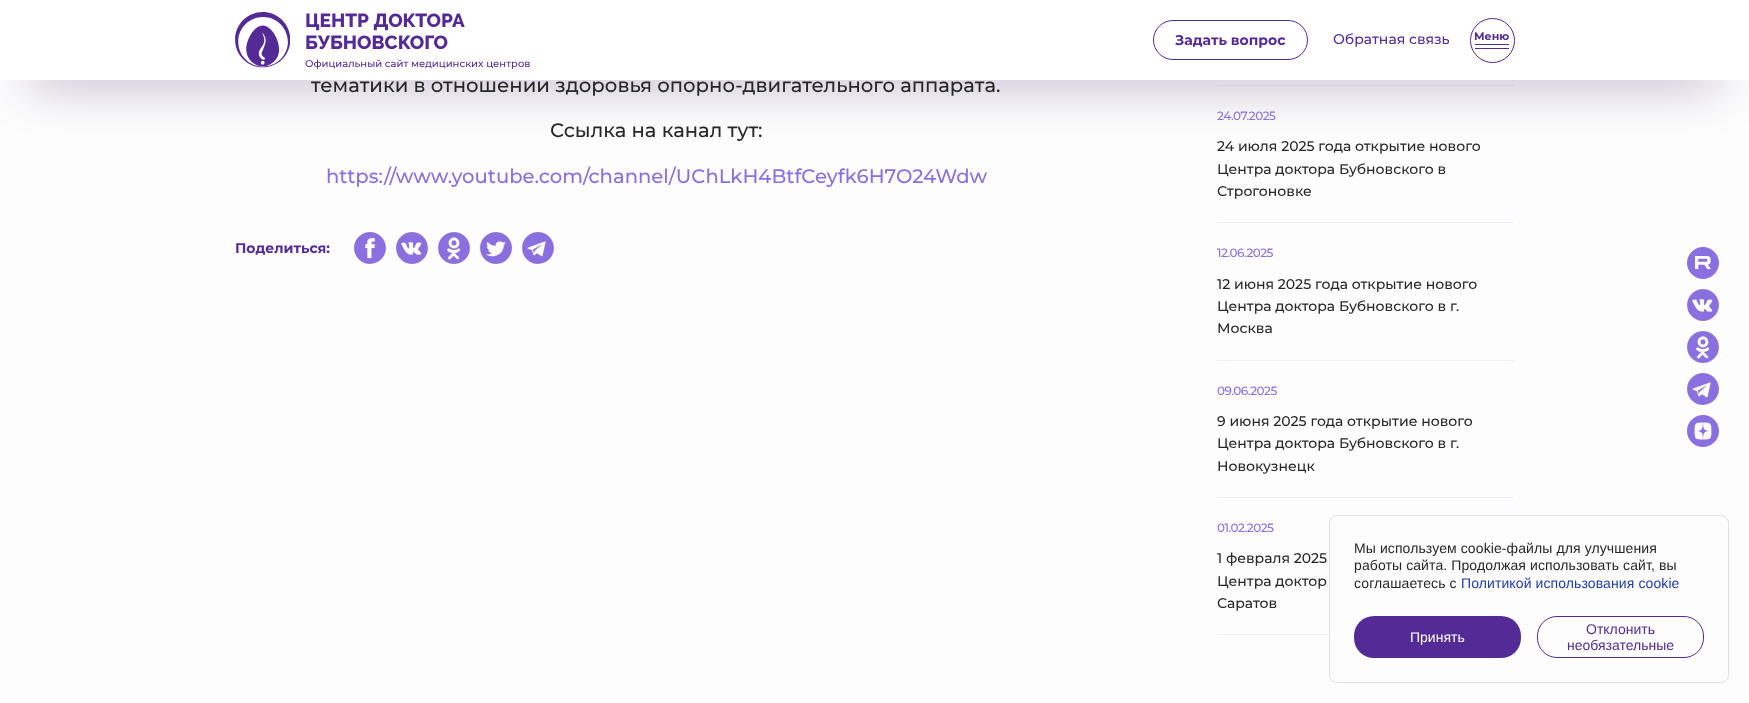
<svg xmlns="http://www.w3.org/2000/svg" width="1749" height="703">
<rect width="100%" height="100%" fill="#fdfdfd"/>
<rect x="1217" y="85" width="297" height="1" fill="#f2ecfd"/>
<rect x="30" y="60" width="1689" height="20" fill="#2c125780" filter="blur(25px)"/>
<rect width="1749" height="80" fill="#fff"/>
<image x="235" y="12" width="55" height="56" href="media/1.png"/>
<text x="305" y="27" style="font-family:Raleway;font-size:19px;font-weight:800;fill:#542b96">ЦЕНТР ДОКТОРА</text>
<text x="305" y="49" style="font-family:Raleway;font-size:19px;font-weight:800;fill:#542b96">БУБНОВСКОГО</text>
<text x="305" y="67" style="font-family:Montserrat;font-size:10px;font-weight:500;fill:#542b96">Официальный сайт медицинских центров</text>
<rect x="1153.5" y="20.5" width="154" height="39" rx="19.5" fill="none" stroke="#542b96"/>
<text x="1175" y="45" style="font-family:Montserrat;font-size:14px;font-weight:bold;fill:#542b96">Задать вопрос</text>
<text x="1333" y="44" style="font-family:Montserrat;font-size:14px;font-weight:500;fill:#542b96">Обратная связь</text>
<circle cx="1492.5" cy="40.5" r="22" fill="none" stroke="#542b96"/>
<text x="1474" y="40" style="font-family:Montserrat;font-size:11px;font-weight:bold;fill:#542b96">Меню</text>
<rect x="1475" y="44" width="34" height="1" fill="#542b96"/>
<rect x="1475" y="48" width="34" height="1" fill="#542b96"/>
<text x="311" y="92" style="font-family:Montserrat;font-size:19.6px;font-weight:500;fill:#272727">тематики в отношении здоровья опорно-двигательного аппарата.</text>
<text x="550" y="137" style="font-family:Montserrat;font-size:19.6px;font-weight:500;fill:#272727">Ссылка на канал тут:</text>
<text x="326" y="183" style="font-family:Montserrat;font-size:19.6px;font-weight:500;fill:#8a6fe1">https://www.youtube.com/channel/UChLkH4BtfCeyfk6H7O24Wdw</text>
<text x="235" y="253" style="font-family:Montserrat;font-size:14px;font-weight:bold;fill:#542b96">Поделиться:</text>
<image x="354" y="232" width="32" height="32" href="media/2.png"/>
<image x="396" y="232" width="32" height="32" href="media/3.png"/>
<image x="438" y="232" width="32" height="32" href="media/4.png"/>
<image x="480" y="232" width="32" height="32" href="media/5.png"/>
<image x="522" y="232" width="32" height="32" href="media/6.png"/>
<rect x="1217" y="222" width="297" height="1" fill="#f2ecfd"/>
<text x="1217" y="120" style="font-family:Montserrat;font-size:12px;font-weight:500;letter-spacing:-0.5px;fill:#8a6fe1">24.07.2025</text>
<text x="1217" y="151" style="font-family:Montserrat;font-size:14px;font-weight:500;fill:#272727">24 июля 2025 года открытие нового</text>
<text x="1217" y="174" style="font-family:Montserrat;font-size:14px;font-weight:500;fill:#272727">Центра доктора Бубновского в</text>
<text x="1217" y="196" style="font-family:Montserrat;font-size:14px;font-weight:500;fill:#272727">Строгоновке</text>
<rect x="1217" y="360" width="297" height="1" fill="#f2ecfd"/>
<text x="1217" y="257" style="font-family:Montserrat;font-size:12px;font-weight:500;letter-spacing:-0.5px;fill:#8a6fe1">12.06.2025</text>
<text x="1217" y="289" style="font-family:Montserrat;font-size:14px;font-weight:500;fill:#272727">12 июня 2025 года открытие нового</text>
<text x="1217" y="311" style="font-family:Montserrat;font-size:14px;font-weight:500;fill:#272727">Центра доктора Бубновского в г.</text>
<text x="1217" y="333" style="font-family:Montserrat;font-size:14px;font-weight:500;fill:#272727">Москва</text>
<rect x="1217" y="497" width="297" height="1" fill="#f2ecfd"/>
<text x="1217" y="395" style="font-family:Montserrat;font-size:12px;font-weight:500;letter-spacing:-0.5px;fill:#8a6fe1">09.06.2025</text>
<text x="1217" y="426" style="font-family:Montserrat;font-size:14px;font-weight:500;fill:#272727">9 июня 2025 года открытие нового</text>
<text x="1217" y="448" style="font-family:Montserrat;font-size:14px;font-weight:500;fill:#272727">Центра доктора Бубновского в г.</text>
<text x="1217" y="471" style="font-family:Montserrat;font-size:14px;font-weight:500;fill:#272727">Новокузнецк</text>
<rect x="1217" y="634" width="112" height="1" fill="#f2ecfd"/>
<text x="1217" y="532" style="font-family:Montserrat;font-size:12px;font-weight:500;letter-spacing:-0.5px;fill:#8a6fe1">01.02.2025</text>
<text x="1217" y="563" style="font-family:Montserrat;font-size:14px;font-weight:500;fill:#272727">1 февраля 2025</text>
<text x="1217" y="586" style="font-family:Montserrat;font-size:14px;font-weight:500;fill:#272727">Центра доктор</text>
<text x="1217" y="608" style="font-family:Montserrat;font-size:14px;font-weight:500;fill:#272727">Саратов</text>
<rect x="1329.5" y="515.5" width="399" height="167" rx="7.5" fill="none" stroke="#e0e0e0"/>
<text x="1354" y="553" style="font-family:Liberation Sans;font-size:14px;letter-spacing:0.1px;fill:#272727">Мы используем cookie-файлы для улучшения</text>
<text x="1354" y="570" style="font-family:Liberation Sans;font-size:14px;letter-spacing:0.1px;fill:#272727">работы сайта. Продолжая использовать сайт, вы</text>
<text x="1354" y="588" style="font-family:Liberation Sans;font-size:14px;letter-spacing:0.1px;fill:#272727">соглашаетесь с</text>
<text x="1461" y="588" style="font-family:Liberation Sans;font-size:14px;letter-spacing:0.1px;fill:#1e3cad">Политикой использования cookie</text>
<rect x="1354" y="616" width="167" height="42" rx="20" fill="#542b96"/>
<text x="1410" y="642" style="font-family:Liberation Sans;font-size:14px;fill:#fff">Принять</text>
<rect x="1537.5" y="616.5" width="166" height="41" rx="19.5" fill="none" stroke="#542b96"/>
<text x="1586" y="634" style="font-family:Liberation Sans;font-size:14px;fill:#542b96">Отклонить</text>
<text x="1567" y="650" style="font-family:Liberation Sans;font-size:14px;fill:#542b96">необязательные</text>
<image x="1687" y="247" width="32" height="32" href="media/7.png"/>
<image x="1687" y="289" width="32" height="32" href="media/8.png"/>
<image x="1687" y="331" width="32" height="32" href="media/9.png"/>
<image x="1687" y="373" width="32" height="32" href="media/10.png"/>
<image x="1687" y="415" width="32" height="32" href="media/11.png"/>
</svg>
